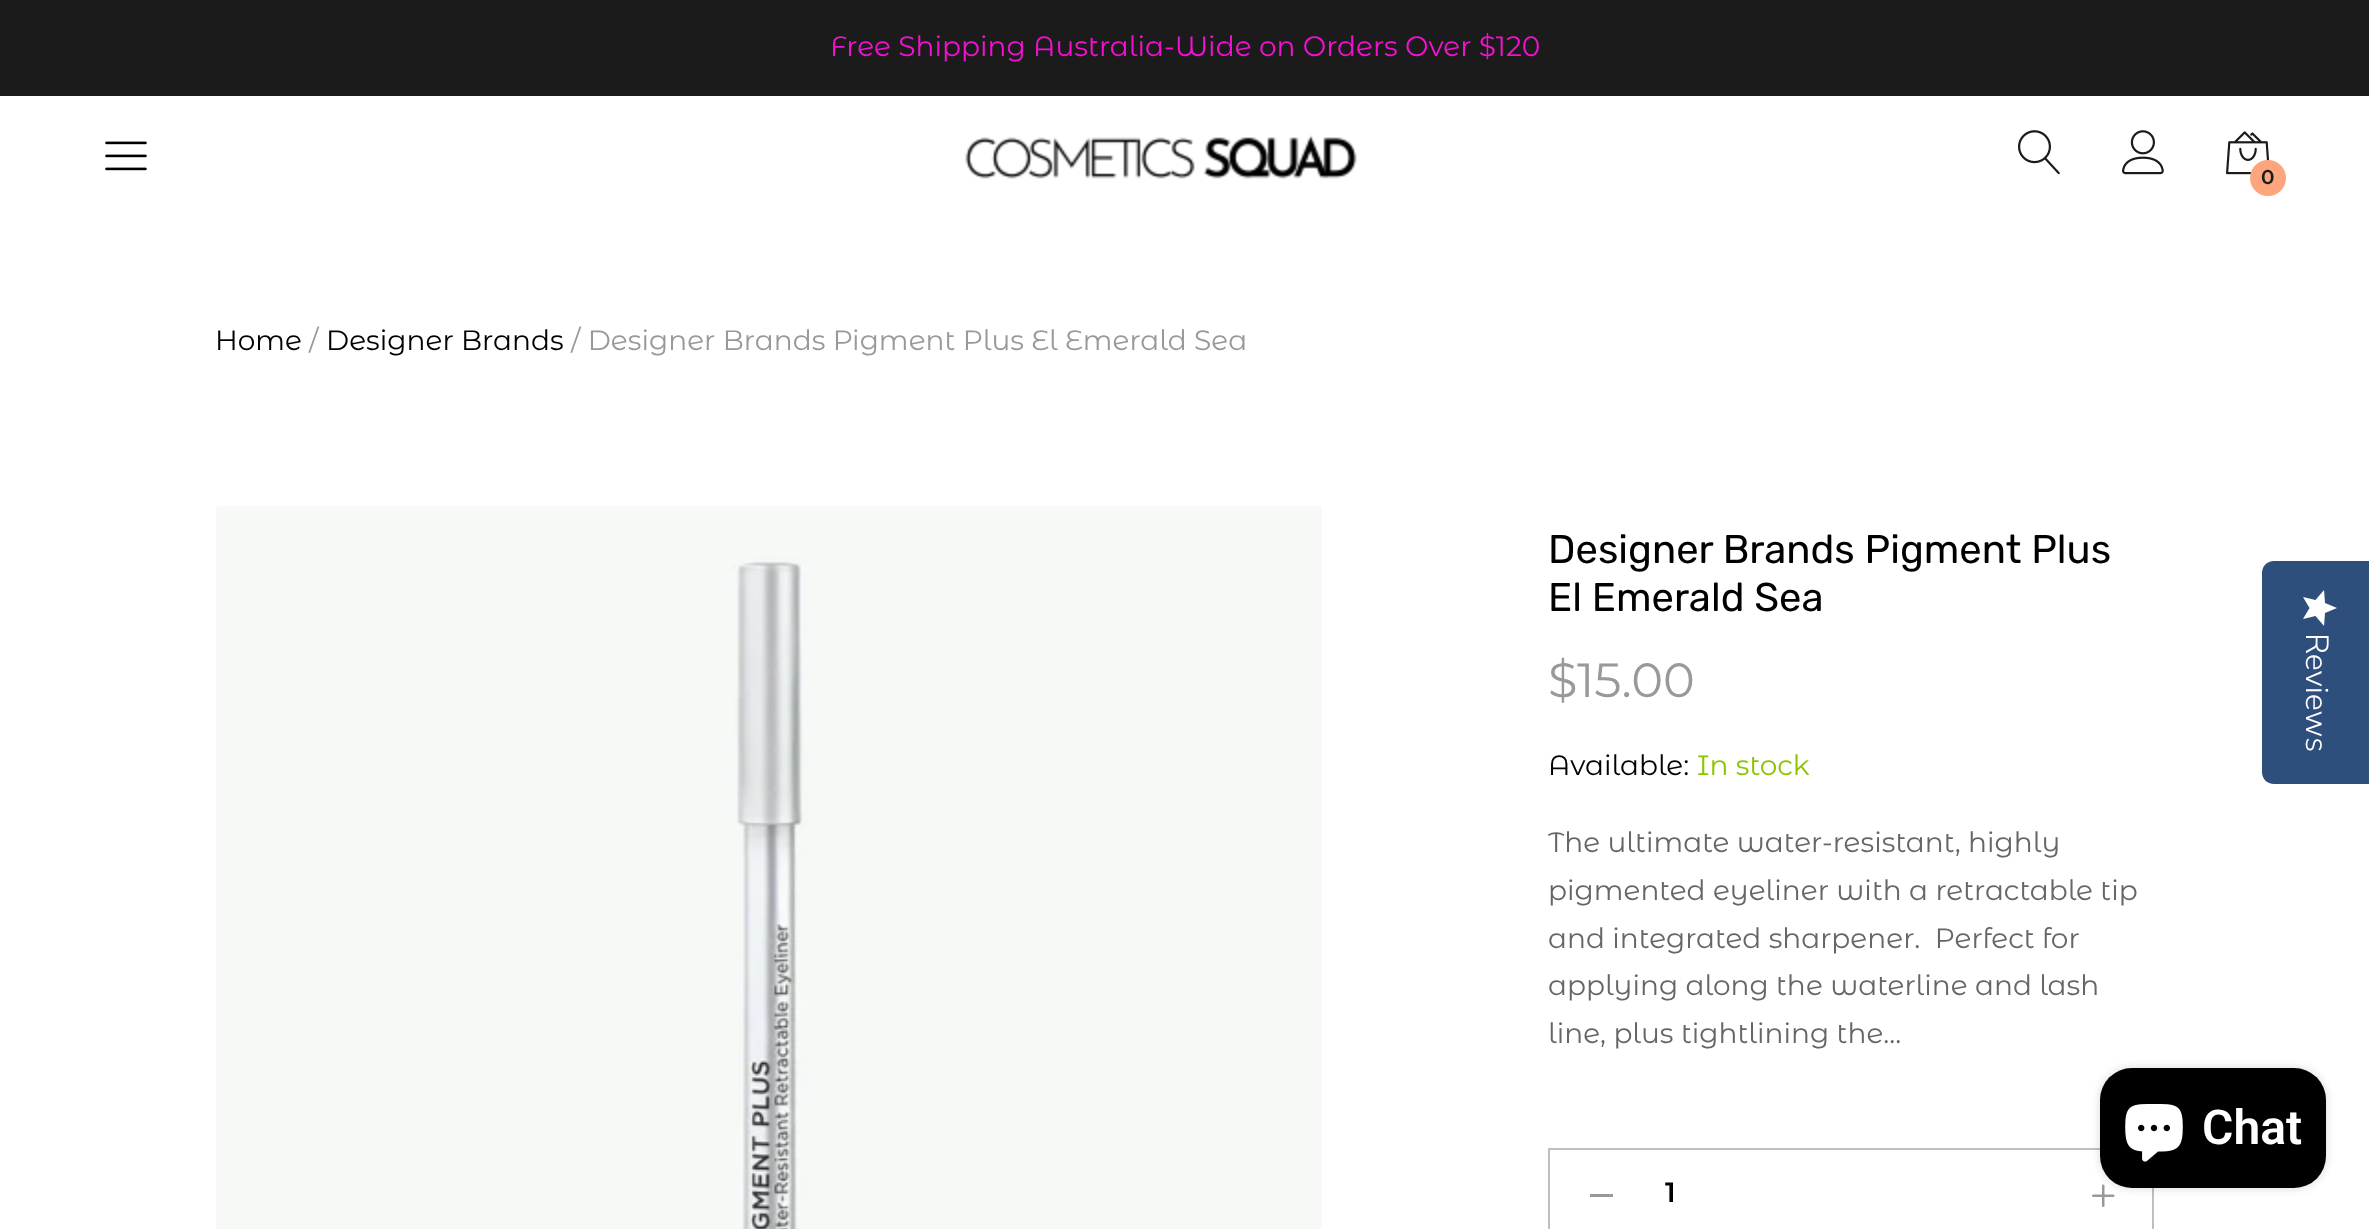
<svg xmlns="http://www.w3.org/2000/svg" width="2369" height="1229">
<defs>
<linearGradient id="g1" gradientUnits="userSpaceOnUse" x1="2337" y1="590" x2="2337" y2="626"><stop offset="1" stop-color="#fff"/><stop offset="1" stop-color="#eaeaea"/></linearGradient>
</defs>
<rect width="100%" height="100%" fill="#fff"/>
<rect width="2369" height="96" fill="#1c1b1b"/>
<text x="830" y="56" style="font-family:Montserrat Alternates;font-size:28px;fill:#f410d1">Free Shipping Australia-Wide on Orders Over $120</text>
<image x="105" y="141" width="42" height="30" href="media/1.png"/>
<image x="965" y="135" width="392" height="44" href="media/2.png"/>
<image x="2018" y="130" width="42" height="45" href="media/3.png"/>
<image x="2122" y="130" width="42" height="45" href="media/4.png"/>
<image x="2226" y="131" width="44" height="44" href="media/5.png"/>
<circle cx="2268" cy="178" r="18" fill="#fda57d"/>
<text x="2261" y="184" style="font-family:Montserrat Alternates;font-size:20px;font-weight:600;fill:#1c1b1b">0</text>
<text x="215" y="350" style="font-family:Montserrat Alternates;font-size:28px;fill:#000">Home</text>
<text x="309" y="350" style="font-family:Montserrat Alternates;font-size:28px;fill:#999">/</text>
<text x="326" y="350" style="font-family:Montserrat Alternates;font-size:28px;fill:#000">Designer Brands</text>
<text x="571" y="350" style="font-family:Montserrat Alternates;font-size:28px;fill:#999">/ Designer Brands Pigment Plus El Emerald Sea</text>
<image x="216" y="506" width="1106" height="723" href="media/6.png"/>
<text x="1548" y="563" style="font-family:Rubik;font-size:40px;fill:#000">Designer Brands Pigment Plus</text>
<text x="1548" y="611" style="font-family:Rubik;font-size:40px;fill:#000">El Emerald Sea</text>
<text x="1548" y="697" style="font-family:Montserrat Alternates;font-size:48px;fill:#999">$15.00</text>
<text x="1548" y="775" style="font-family:Montserrat Alternates;font-size:28px;fill:#000">Available:</text>
<text x="1697" y="775" style="font-family:Montserrat Alternates;font-size:28px;fill:#8bc500">In stock</text>
<text x="1548" y="852" style="font-family:Montserrat Alternates;font-size:28px;fill:#666">The ultimate water-resistant, highly</text>
<text x="1548" y="900" style="font-family:Montserrat Alternates;font-size:28px;fill:#666">pigmented eyeliner with a retractable tip</text>
<text x="1548" y="948" style="font-family:Montserrat Alternates;font-size:28px;fill:#666" xml:space="preserve">and integrated sharpener.  Perfect for</text>
<text x="1548" y="995" style="font-family:Montserrat Alternates;font-size:28px;fill:#666">applying along the waterline and lash</text>
<text x="1548" y="1043" style="font-family:Montserrat Alternates;font-size:28px;fill:#666">line, plus tightlining the...</text>
<rect x="1549" y="1149" width="604" height="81" fill="none" stroke="#bfbfbf" stroke-width="2"/>
<rect x="1590" y="1194" width="23" height="3" fill="#999"/>
<text x="1665" y="1202" style="font-family:Montserrat Alternates;font-size:28px;font-weight:600;fill:#000">1</text>
<image x="2092" y="1184" width="23" height="23" href="media/7.png"/>
<path d="M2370 561v223h-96c-7 0-12-5-12-12v-199c0-7 5-12 12-12z" fill="#2e4f7c"/>
<path d="M2309.5 608l-6.5 11l12.5-3l8.5 10l1-13l12-5l-12-5l-1-13l-8.5 10l-12.5-3z" fill="url(#g1)"/>
<text x="2306" y="633" transform="rotate(90 2306 633)" style="font-family:Nunito Sans;font-size:32px;font-weight:300;fill:#fff">Reviews</text>
<rect x="2100" y="1068" width="226" height="120" rx="32" fill="#00000026" filter="blur(5px)"/>
<rect x="2100" y="1068" width="226" height="120" rx="32" fill="#000"/>
<image x="2125" y="1104" width="58" height="58" href="media/8.png"/>
<text x="2202" y="1144" style="font-family:Roboto;font-size:48px;font-weight:600;fill:#fff">Chat</text>
</svg>
